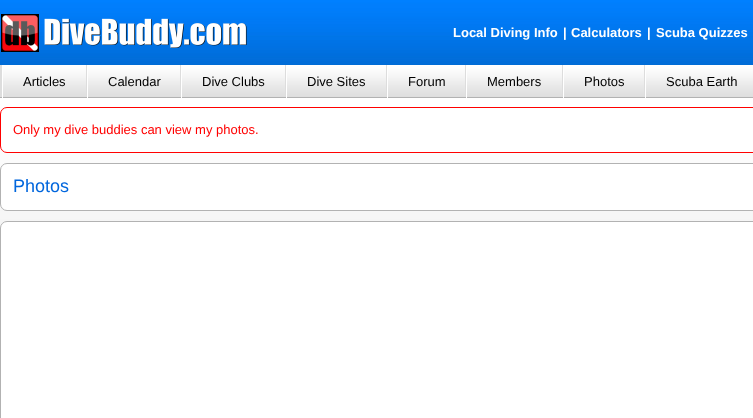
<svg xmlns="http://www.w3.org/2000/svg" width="753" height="418">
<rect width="100%" height="100%" fill="#fff"/>
<image x="0" y="0" width="753" height="228" href="media/1.png"/>
<image x="1" y="14" width="246" height="38" href="media/2.png"/>
<text x="453" y="37" style="font-family:Liberation Sans;font-size:13px;font-weight:bold;fill:#fff">Local Diving Info</text>
<text x="563" y="37" style="font-family:Liberation Sans;font-size:13px;font-weight:bold;fill:#fff">|</text>
<text x="571" y="37" style="font-family:Liberation Sans;font-size:13px;font-weight:bold;fill:#fff">Calculators</text>
<text x="647" y="37" style="font-family:Liberation Sans;font-size:13px;font-weight:bold;fill:#fff">|</text>
<text x="656" y="37" style="font-family:Liberation Sans;font-size:13px;font-weight:bold;fill:#fff">Scuba Quizzes</text>
<rect y="65" width="2" height="32" fill="#ddd"/>
<rect x="86" y="65" width="1" height="33" fill="#ddd"/>
<rect x="86" y="97" width="1" height="1" fill="#b2b2b2"/>
<rect x="2" y="65" width="1" height="33" fill="#fff"/>
<text x="23" y="86" style="font-family:Liberation Sans;font-size:13px;fill:#000">Articles</text>
<rect x="180" y="65" width="1" height="33" fill="#ddd"/>
<rect x="180" y="97" width="1" height="1" fill="#b2b2b2"/>
<rect x="87" y="65" width="1" height="33" fill="#fff"/>
<text x="108" y="86" style="font-family:Liberation Sans;font-size:13px;fill:#000">Calendar</text>
<rect x="285" y="65" width="1" height="33" fill="#ddd"/>
<rect x="285" y="97" width="1" height="1" fill="#b2b2b2"/>
<rect x="181" y="65" width="1" height="33" fill="#fff"/>
<text x="202" y="86" style="font-family:Liberation Sans;font-size:13px;fill:#000">Dive Clubs</text>
<rect x="386" y="65" width="1" height="33" fill="#ddd"/>
<rect x="386" y="97" width="1" height="1" fill="#b2b2b2"/>
<rect x="286" y="65" width="1" height="33" fill="#fff"/>
<text x="307" y="86" style="font-family:Liberation Sans;font-size:13px;fill:#000">Dive Sites</text>
<rect x="465" y="65" width="1" height="33" fill="#ddd"/>
<rect x="465" y="97" width="1" height="1" fill="#b2b2b2"/>
<rect x="387" y="65" width="1" height="33" fill="#fff"/>
<text x="408" y="86" style="font-family:Liberation Sans;font-size:13px;fill:#000">Forum</text>
<rect x="562" y="65" width="1" height="33" fill="#ddd"/>
<rect x="562" y="97" width="1" height="1" fill="#b2b2b2"/>
<rect x="466" y="65" width="1" height="33" fill="#fff"/>
<text x="487" y="86" style="font-family:Liberation Sans;font-size:13px;fill:#000">Members</text>
<rect x="644" y="65" width="1" height="33" fill="#ddd"/>
<rect x="644" y="97" width="1" height="1" fill="#b2b2b2"/>
<rect x="563" y="65" width="1" height="33" fill="#fff"/>
<text x="584" y="86" style="font-family:Liberation Sans;font-size:13px;fill:#000">Photos</text>
<rect x="645" y="65" width="1" height="33" fill="#fff"/>
<text x="666" y="86" style="font-family:Liberation Sans;font-size:13px;fill:#000">Scuba Earth</text>
<rect x="0.5" y="107.5" width="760" height="45" rx="6.5" fill="#fff" stroke="#f00"/>
<text x="13" y="134" style="font-family:Liberation Sans;font-size:13px;fill:#f00">Only my dive buddies can view my photos.</text>
<rect x="0.5" y="163.5" width="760" height="47" rx="6.5" fill="#fff" stroke="#b2b2b2"/>
<text x="13" y="192" style="font-family:Liberation Sans;font-size:18px;fill:#06d">Photos</text>
<rect x="0.5" y="221.5" width="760" height="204" rx="6.5" fill="#fff" stroke="#b2b2b2"/>
</svg>
